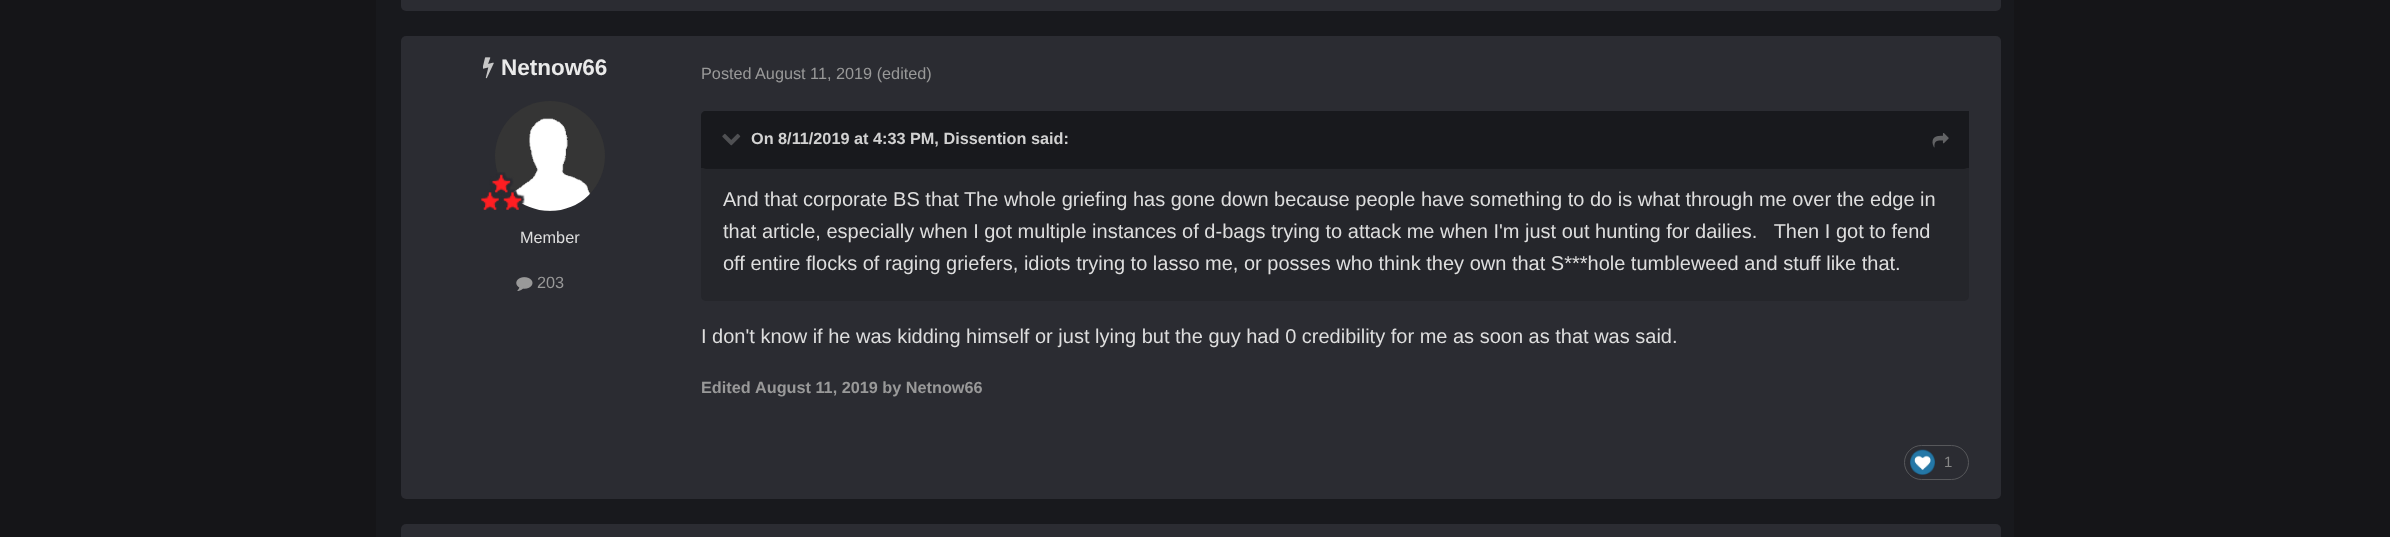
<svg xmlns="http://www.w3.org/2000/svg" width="2390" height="537">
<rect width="100%" height="100%" fill="#151518"/>
<rect x="376" width="1638" height="537" fill="#18191d"/>
<rect x="401" y="-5" width="1600" height="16" rx="5" fill="#2b2c32"/>
<rect x="401" y="36" width="1600" height="463" rx="5" fill="#2b2c32"/>
<image x="483" y="57" width="11" height="22" href="media/1.png"/>
<text x="501" y="75" style="font-family:Liberation Sans;font-size:22.5px;font-weight:bold;fill:#eaeaea">Netnow66</text>
<image x="495" y="101" width="110" height="110" href="media/2.png"/>
<image x="481" y="172" width="44" height="38" href="media/3.png"/>
<text x="520" y="243" style="font-family:Liberation Sans;font-size:16.25px;fill:#dedede">Member</text>
<image x="516" y="277" width="17" height="14" href="media/4.png"/>
<text x="537" y="288" style="font-family:Liberation Sans;font-size:16.25px;fill:#999">203</text>
<text x="701" y="79" style="font-family:Liberation Sans;font-size:16.25px;fill:#999">Posted</text>
<text x="755" y="79" style="font-family:Liberation Sans;font-size:16.25px;fill:#999">August 11, 2019 (edited)</text>
<rect x="701" y="111" width="1268" height="190" rx="5" fill="#25262b"/>
<rect x="701" y="113" width="1268" height="56" rx="5" fill="#0000004d" filter="blur(0.5px)"/>
<path d="M706 111h1263v57h-1268v-52c0-3 2-5 5-5z" fill="#18191d"/>
<image x="722" y="133" width="19" height="13" href="media/5.png"/>
<text x="751" y="144" style="font-family:Liberation Sans;font-size:16.25px;font-weight:bold;fill:#d2d2d2">On 8/11/2019 at 4:33 PM, Dissention said:</text>
<image x="1932" y="133" width="17" height="15" href="media/6.png"/>
<text x="723" y="206" style="font-family:Liberation Sans;font-size:20px;fill:#dedede">And that corporate BS that The whole griefing has gone down because people have something to do is what through me over the edge in</text>
<text x="723" y="238" style="font-family:Liberation Sans;font-size:20px;fill:#dedede" xml:space="preserve">that article, especially when I got multiple instances of d-bags trying to attack me when I'm just out hunting for dailies.   Then I got to fend</text>
<text x="723" y="270" style="font-family:Liberation Sans;font-size:20px;fill:#dedede">off entire flocks of raging griefers, idiots trying to lasso me, or posses who think they own that S***hole tumbleweed and stuff like that.</text>
<text x="701" y="343" style="font-family:Liberation Sans;font-size:20px;fill:#dedede">I don't know if he was kidding himself or just lying but the guy had 0 credibility for me as soon as that was said.</text>
<text x="701" y="393" style="font-family:Liberation Sans;font-size:16.25px;font-weight:bold;fill:#999">Edited</text>
<text x="755" y="393" style="font-family:Liberation Sans;font-size:16.25px;font-weight:bold;fill:#999">August 11, 2019 by Netnow66</text>
<rect x="1904.5" y="445.5" width="64" height="34" rx="17" fill="none" stroke="#57585b"/>
<image x="1910" y="449" width="25" height="26" href="media/7.png"/>
<text x="1944" y="467" style="font-family:Liberation Sans;font-size:15px;fill:#878787">1</text>
<rect x="401" y="524" width="1600" height="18" rx="5" fill="#2b2c32"/>
</svg>
